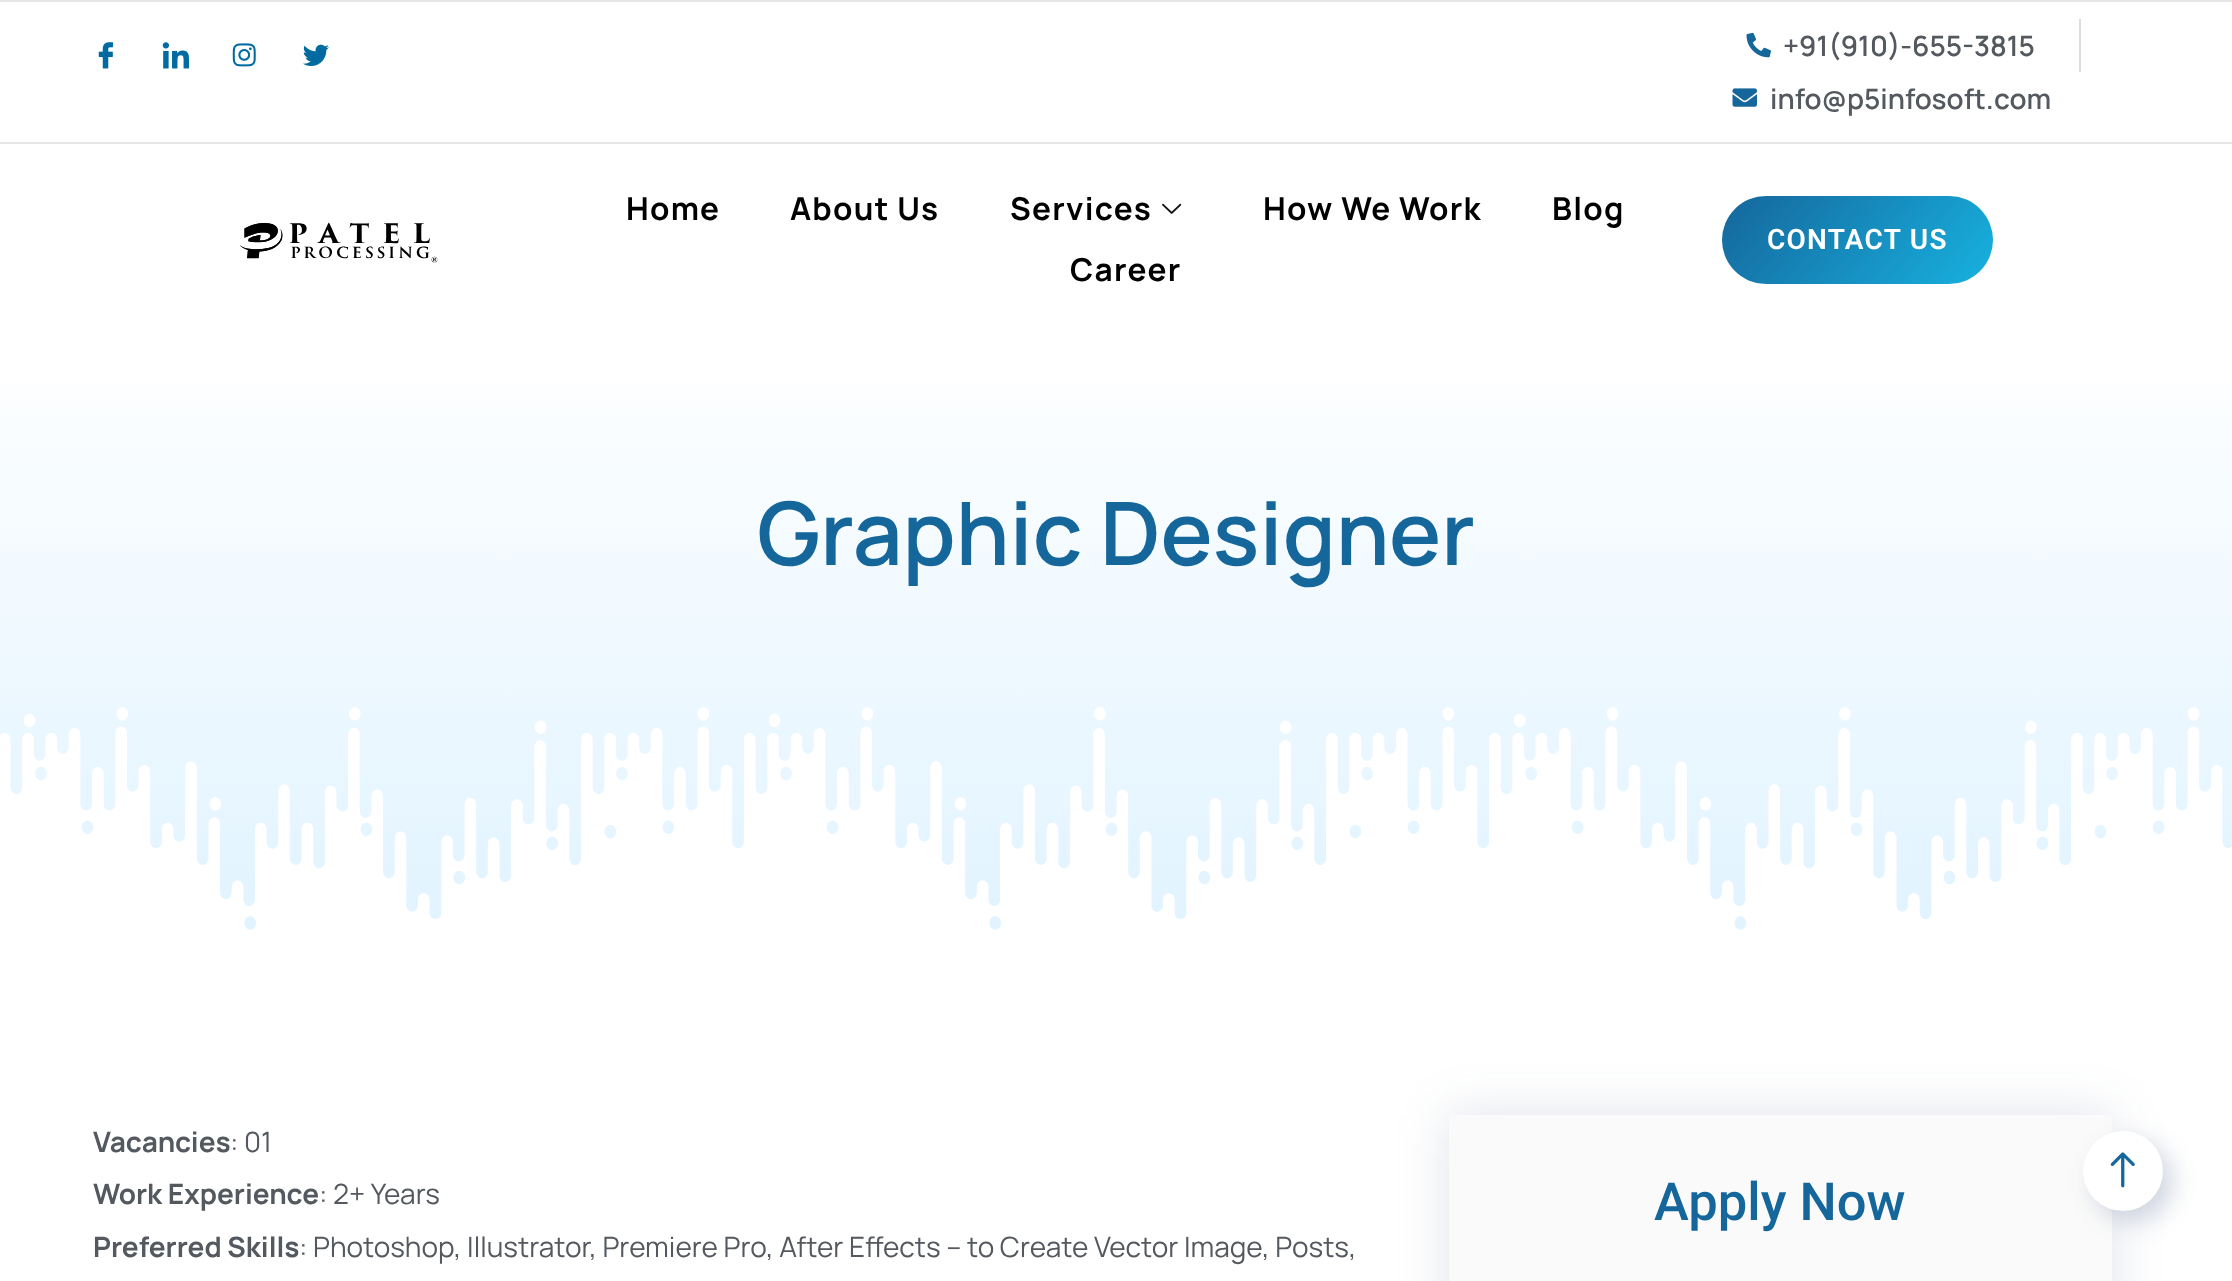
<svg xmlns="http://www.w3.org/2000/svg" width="2232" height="1281">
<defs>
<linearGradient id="g1" gradientUnits="userSpaceOnUse" x1="1756" y1="155" x2="1959" y2="325"><stop offset="0" stop-color="#15669b"/><stop offset="1" stop-color="#17b2e0"/></linearGradient>
<linearGradient id="g2" gradientUnits="userSpaceOnUse" x1="1117" y1="336" x2="1117" y2="940"><stop offset="0" stop-color="#fff"/><stop offset="1" stop-color="#e0f3ff"/></linearGradient>
</defs>
<rect width="100%" height="100%" fill="#fff"/>
<rect width="2232" height="2" fill="#e5e5e5"/>
<rect y="142" width="2232" height="2" fill="#e5e5e5"/>
<image x="98" y="42" width="15" height="27" href="media/1.png"/>
<image x="162" y="42" width="27" height="27" href="media/2.png"/>
<image x="232" y="43" width="24" height="24" href="media/3.png"/>
<image x="303" y="44" width="26" height="22" href="media/4.png"/>
<image x="1746" y="32" width="25" height="26" href="media/5.png"/>
<text x="1783" y="56" style="font-family:Manrope;font-size:28px;font-weight:600;fill:#54595f">+91(910)-655-3815</text>
<rect x="2079" y="19" width="2" height="53" fill="#ddd"/>
<image x="1732" y="88" width="25" height="19" href="media/6.png"/>
<text x="1770" y="109" style="font-family:Manrope;font-size:28px;font-weight:600;fill:#54595f">info@p5infosoft.com</text>
<image x="239" y="222" width="199" height="41" href="media/7.png"/>
<text x="626" y="220" style="font-family:Manrope;font-size:31.5px;font-weight:bold;letter-spacing:1.25px;fill:#000">Home</text>
<text x="790" y="220" style="font-family:Manrope;font-size:31.5px;font-weight:bold;letter-spacing:1.25px;fill:#000">About Us</text>
<text x="1010" y="220" style="font-family:Manrope;font-size:31.5px;font-weight:bold;letter-spacing:1.25px;fill:#000">Services</text>
<image x="1162" y="203" width="20" height="11" href="media/8.png"/>
<text x="1263" y="220" style="font-family:Manrope;font-size:31.5px;font-weight:bold;letter-spacing:1.25px;fill:#000">How We Work</text>
<text x="1552" y="220" style="font-family:Manrope;font-size:31.5px;font-weight:bold;letter-spacing:1.25px;fill:#000">Blog</text>
<text x="1070" y="281" style="font-family:Manrope;font-size:31.5px;font-weight:bold;letter-spacing:1.25px;fill:#000">Career</text>
<rect x="1722" y="196" width="271" height="88" rx="44" fill="url(#g1)"/>
<text x="1767" y="249" style="font-family:Roboto;font-size:28px;font-weight:600;letter-spacing:1.25px;fill:#fff">CONTACT US</text>
<rect y="385" width="2232" height="545" fill="url(#g2)"/>
<text x="757" y="565" style="font-family:Manrope;font-size:87.5px;font-weight:600;fill:#15669b">Graphic Designer</text>
<image x="0" y="707" width="2232" height="233" href="media/9.png"/>
<text x="93" y="1152" style="font-family:Manrope;font-size:28px;font-weight:bold;fill:#54595f">Vacancies</text>
<text x="230" y="1152" style="font-family:Manrope;font-size:28px;fill:#54595f">: 01</text>
<text x="93" y="1204" style="font-family:Manrope;font-size:28px;font-weight:bold;fill:#54595f">Work Experience</text>
<text x="319" y="1204" style="font-family:Manrope;font-size:28px;fill:#54595f">: 2+ Years</text>
<text x="93" y="1257" style="font-family:Manrope;font-size:28px;font-weight:bold;fill:#54595f">Preferred Skills</text>
<text x="299" y="1257" style="font-family:Manrope;font-size:28px;fill:#54595f">: Photoshop, Illustrator, Premiere Pro, After Effects – to Create Vector Image, Posts,</text>
<rect x="1449" y="1115" width="663" height="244" fill="#2a437126" filter="blur(26px)"/>
<rect x="1449" y="1115" width="663" height="166" fill="#fafafa"/>
<text x="1654" y="1220" style="font-family:Roboto;font-size:52.5px;font-weight:500;fill:#15669b">Apply Now</text>
<rect x="2093" y="1141" width="81" height="81" rx="40.5" fill="#2a437133" filter="blur(11.5px)"/>
<circle cx="2123" cy="1171" r="40" fill="#fff"/>
<image x="2110" y="1152" width="25" height="36" href="media/10.png"/>
</svg>
